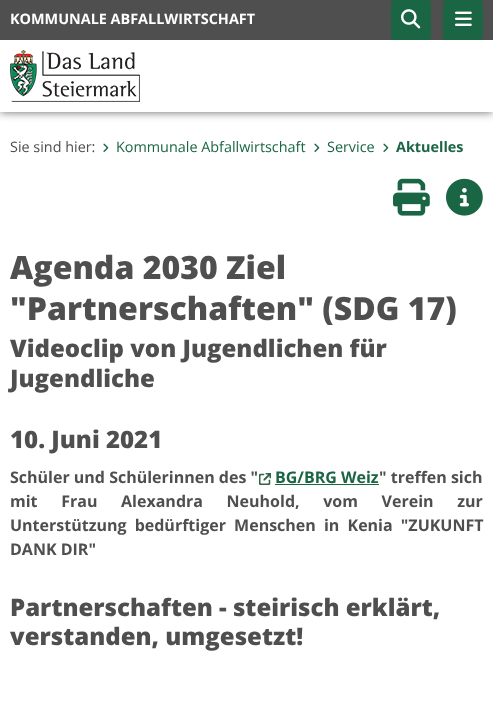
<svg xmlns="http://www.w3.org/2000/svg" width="493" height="728">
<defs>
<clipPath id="clip1"><rect x="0" y="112" width="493" height="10"/></clipPath>
</defs>
<rect width="100%" height="100%" fill="#fff"/>
<g clip-path="url(#clip1)">
<rect width="493" height="112" fill="#656565" filter="blur(5px)"/>
</g>
<rect width="493" height="40" fill="#4f4f4f"/>
<text x="10" y="24" style="font-family:Open Sans;font-size:14.4px;font-weight:bold;fill:#fff">KOMMUNALE ABFALLWIRTSCHAFT</text>
<rect x="391" width="40" height="40" rx="4" fill="#1a6544"/>
<image x="401" y="9" width="20" height="20" href="media/1.png"/>
<rect x="443" width="40" height="40" rx="4" fill="#1a6544"/>
<image x="455" y="11" width="17" height="15" href="media/2.png"/>
<image x="10" y="50" width="130" height="52" href="media/3.png"/>
<text x="10" y="152" style="font-family:Open Sans;font-size:14.4px;fill:#4f4f4f">Sie sind hier:</text>
<image x="103" y="143" width="6" height="9" href="media/4.png"/>
<text x="116" y="152" style="font-family:Open Sans;font-size:14.4px;fill:#1a6544">Kommunale Abfallwirtschaft</text>
<image x="314" y="143" width="6" height="9" href="media/4.png"/>
<text x="327" y="152" style="font-family:Open Sans;font-size:14.4px;fill:#1a6544">Service</text>
<image x="383" y="143" width="6" height="9" href="media/4.png"/>
<text x="396" y="152" style="font-family:Open Sans;font-size:14.4px;font-weight:bold;fill:#1a6544">Aktuelles</text>
<image x="393" y="178" width="37" height="38" href="media/5.png"/>
<image x="446" y="178" width="37" height="38" href="media/6.png"/>
<text x="10" y="279" style="font-family:Open Sans;font-size:32px;font-weight:800;fill:#4f4f4f">Agenda 2030 Ziel</text>
<text x="10" y="320" style="font-family:Open Sans;font-size:32px;font-weight:800;fill:#4f4f4f">"Partnerschaften" (SDG 17)</text>
<text x="10" y="357" style="font-family:Open Sans;font-size:24px;font-weight:800;fill:#4f4f4f">Videoclip von Jugendlichen für</text>
<text x="10" y="387" style="font-family:Open Sans;font-size:24px;font-weight:800;fill:#4f4f4f">Jugendliche</text>
<text x="10" y="448" style="font-family:Open Sans;font-size:24px;font-weight:800;fill:#4f4f4f">10. Juni 2021</text>
<text x="10" y="483" style="font-family:Open Sans;font-size:16px;font-weight:bold;fill:#4f4f4f">Schüler und Schülerinnen des "</text>
<image x="259" y="473" width="12" height="12" href="media/7.png"/>
<text x="275" y="483" style="font-family:Open Sans;font-size:16px;font-weight:bold;fill:#1a6544">BG/BRG Weiz</text>
<rect x="275" y="484" width="104" height="1" fill="#1a6544"/>
<text x="379" y="483" style="font-family:Open Sans;font-size:16px;font-weight:bold;fill:#4f4f4f">" treffen sich</text>
<text x="10" y="507" word-spacing="19.5" style="font-family:Open Sans;font-size:16px;font-weight:bold;fill:#4f4f4f">mit Frau Alexandra Neuhold, vom Verein zur</text>
<text x="10" y="531" word-spacing="4" style="font-family:Open Sans;font-size:16px;font-weight:bold;fill:#4f4f4f">Unterstützung bedürftiger Menschen in Kenia "ZUKUNFT</text>
<text x="10" y="555" style="font-family:Open Sans;font-size:16px;font-weight:bold;fill:#4f4f4f">DANK DIR"</text>
<text x="10" y="616" style="font-family:Open Sans;font-size:24px;font-weight:800;fill:#4f4f4f">Partnerschaften - steirisch erklärt,</text>
<text x="10" y="645" style="font-family:Open Sans;font-size:24px;font-weight:800;fill:#4f4f4f">verstanden, umgesetzt!</text>
</svg>
